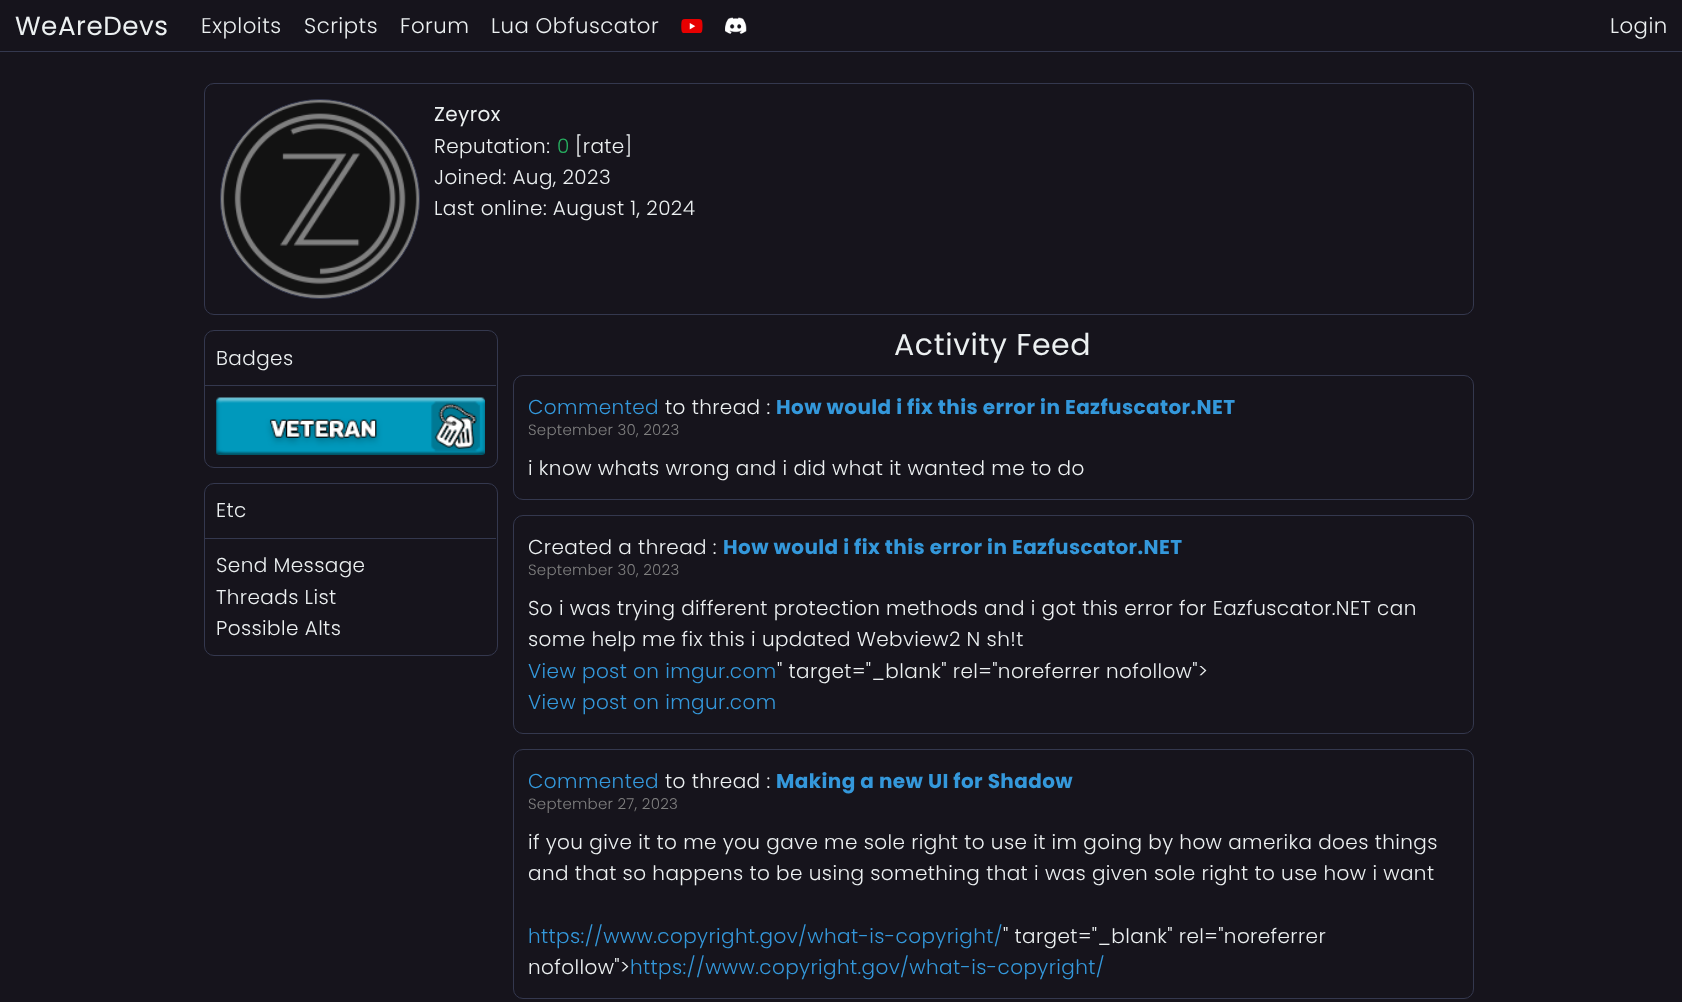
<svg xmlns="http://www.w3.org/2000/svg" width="1682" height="1002">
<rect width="100%" height="100%" fill="#16141c"/>
<rect y="51" width="1682" height="1" fill="#34384e"/>
<text x="15" y="35" style="font-family:Poppins;font-size:26.25px;letter-spacing:0.5px;fill:#ecf0f1">WeAreDevs</text>
<text x="201" y="33" style="font-family:Poppins;font-size:21.25px;font-weight:300;letter-spacing:0.5px;fill:#ecf0f1">Exploits</text>
<text x="304" y="33" style="font-family:Poppins;font-size:21.25px;font-weight:300;letter-spacing:0.5px;fill:#ecf0f1">Scripts</text>
<text x="400" y="33" style="font-family:Poppins;font-size:21.25px;font-weight:300;letter-spacing:0.5px;fill:#ecf0f1">Forum</text>
<text x="491" y="33" style="font-family:Poppins;font-size:21.25px;font-weight:300;letter-spacing:0.5px;fill:#ecf0f1">Lua Obfuscator</text>
<image x="681" y="19" width="22" height="14" href="media/1.png"/>
<image x="725" y="17" width="22" height="17" href="media/2.png"/>
<text x="1610" y="33" style="font-family:Poppins;font-size:21.25px;font-weight:300;letter-spacing:0.5px;fill:#ecf0f1">Login</text>
<rect x="204.5" y="83.5" width="1269" height="231" rx="9.5" fill="none" stroke="#34384e"/>
<circle cx="320" cy="199" r="99.5" fill="#808080" stroke="#34384e"/>
<image x="223" y="102" width="194" height="194" href="media/3.png"/>
<text x="434" y="121" style="font-family:Poppins;font-size:20px;letter-spacing:0.4px;fill:#ecf0f1">Zeyrox</text>
<text x="434" y="153" style="font-family:Poppins;font-size:20px;font-weight:300;letter-spacing:0.4px;fill:#ecf0f1">Reputation:</text>
<text x="557" y="153" style="font-family:Poppins;font-size:20px;font-weight:300;letter-spacing:0.4px;fill:#27ae60">0</text>
<text x="575" y="153" style="font-family:Poppins;font-size:20px;font-weight:300;letter-spacing:0.4px;fill:#ecf0f1">[rate]</text>
<text x="434" y="184" style="font-family:Poppins;font-size:20px;font-weight:300;letter-spacing:0.4px;fill:#ecf0f1">Joined: Aug, 2023</text>
<text x="434" y="215" style="font-family:Poppins;font-size:20px;font-weight:300;letter-spacing:0.4px;fill:#ecf0f1">Last online: August 1, 2024</text>
<rect x="204.5" y="330.5" width="293" height="137" rx="9.5" fill="none" stroke="#34384e"/>
<text x="216" y="365" style="font-family:Poppins;font-size:20px;font-weight:300;letter-spacing:0.4px;fill:#ecf0f1">Badges</text>
<rect x="205" y="385" width="291" height="1" fill="#34384e"/>
<image x="216" y="397" width="269" height="58" href="media/4.png"/>
<rect x="204.5" y="483.5" width="293" height="172" rx="9.5" fill="none" stroke="#34384e"/>
<text x="216" y="517" style="font-family:Poppins;font-size:20px;font-weight:300;letter-spacing:0.4px;fill:#ecf0f1">Etc</text>
<rect x="205" y="538" width="291" height="1" fill="#34384e"/>
<text x="216" y="572" style="font-family:Poppins;font-size:20px;font-weight:300;letter-spacing:0.4px;fill:#ecf0f1">Send Message</text>
<text x="216" y="604" style="font-family:Poppins;font-size:20px;font-weight:300;letter-spacing:0.4px;fill:#ecf0f1">Threads List</text>
<text x="216" y="635" style="font-family:Poppins;font-size:20px;font-weight:300;letter-spacing:0.4px;fill:#ecf0f1">Possible Alts</text>
<text x="894" y="355" style="font-family:Poppins;font-size:30px;letter-spacing:0.6px;fill:#ecf0f1">Activity Feed</text>
<rect x="513.5" y="375.5" width="960" height="124" rx="9.5" fill="none" stroke="#34384e"/>
<text x="528" y="414" style="font-family:Poppins;font-size:20px;font-weight:300;letter-spacing:0.4px;fill:#3498db">Commented</text>
<text x="665" y="414" style="font-family:Poppins;font-size:20px;font-weight:300;letter-spacing:0.4px;fill:#ecf0f1">to thread :</text>
<text x="776" y="414" style="font-family:Poppins;font-size:20px;font-weight:bold;letter-spacing:0.4px;fill:#3498db">How would i fix this error in Eazfuscator.NET</text>
<text x="528" y="435" style="font-family:Poppins;font-size:15px;font-weight:300;letter-spacing:0.25px;fill:#808080">September 30, 2023</text>
<text x="528" y="475" style="font-family:Poppins;font-size:20px;font-weight:300;letter-spacing:0.4px;fill:#ecf0f1">i know whats wrong and i did what it wanted me to do</text>
<rect x="513.5" y="515.5" width="960" height="218" rx="9.5" fill="none" stroke="#34384e"/>
<text x="528" y="554" style="font-family:Poppins;font-size:20px;font-weight:300;letter-spacing:0.4px;fill:#ecf0f1">Created a thread :</text>
<text x="723" y="554" style="font-family:Poppins;font-size:20px;font-weight:bold;letter-spacing:0.4px;fill:#3498db">How would i fix this error in Eazfuscator.NET</text>
<text x="528" y="575" style="font-family:Poppins;font-size:15px;font-weight:300;letter-spacing:0.25px;fill:#808080">September 30, 2023</text>
<text x="528" y="615" style="font-family:Poppins;font-size:20px;font-weight:300;letter-spacing:0.4px;fill:#ecf0f1">So i was trying different protection methods and i got this error for Eazfuscator.NET can</text>
<text x="528" y="646" style="font-family:Poppins;font-size:20px;font-weight:300;letter-spacing:0.4px;fill:#ecf0f1">some help me fix this i updated Webview2 N sh!t</text>
<text x="528" y="678" style="font-family:Poppins;font-size:20px;font-weight:300;letter-spacing:0.4px;fill:#3498db">View post on imgur.com</text>
<text x="777" y="678" style="font-family:Poppins;font-size:20px;font-weight:300;letter-spacing:0.4px;fill:#ecf0f1">" target="_blank" rel="noreferrer nofollow"&gt;</text>
<text x="528" y="709" style="font-family:Poppins;font-size:20px;font-weight:300;letter-spacing:0.4px;fill:#3498db">View post on imgur.com</text>
<rect x="513.5" y="749.5" width="960" height="249" rx="9.5" fill="none" stroke="#34384e"/>
<text x="528" y="788" style="font-family:Poppins;font-size:20px;font-weight:300;letter-spacing:0.4px;fill:#3498db">Commented</text>
<text x="665" y="788" style="font-family:Poppins;font-size:20px;font-weight:300;letter-spacing:0.4px;fill:#ecf0f1">to thread :</text>
<text x="776" y="788" style="font-family:Poppins;font-size:20px;font-weight:bold;letter-spacing:0.4px;fill:#3498db">Making a new UI for Shadow</text>
<text x="528" y="809" style="font-family:Poppins;font-size:15px;font-weight:300;letter-spacing:0.25px;fill:#808080">September 27, 2023</text>
<text x="528" y="849" style="font-family:Poppins;font-size:20px;font-weight:300;letter-spacing:0.4px;fill:#ecf0f1">if you give it to me you gave me sole right to use it im going by how amerika does things</text>
<text x="528" y="880" style="font-family:Poppins;font-size:20px;font-weight:300;letter-spacing:0.4px;fill:#ecf0f1">and that so happens to be using something that i was given sole right to use how i want</text>
<text x="528" y="943" style="font-family:Poppins;font-size:20px;font-weight:300;letter-spacing:0.4px;fill:#3498db">https://www.copyright.gov/what-is-copyright/</text>
<text x="1003" y="943" style="font-family:Poppins;font-size:20px;font-weight:300;letter-spacing:0.4px;fill:#ecf0f1">" target="_blank" rel="noreferrer</text>
<text x="528" y="974" style="font-family:Poppins;font-size:20px;font-weight:300;letter-spacing:0.4px;fill:#ecf0f1">nofollow"&gt;</text>
<text x="630" y="974" style="font-family:Poppins;font-size:20px;font-weight:300;letter-spacing:0.4px;fill:#3498db">https://www.copyright.gov/what-is-copyright/</text>
</svg>
